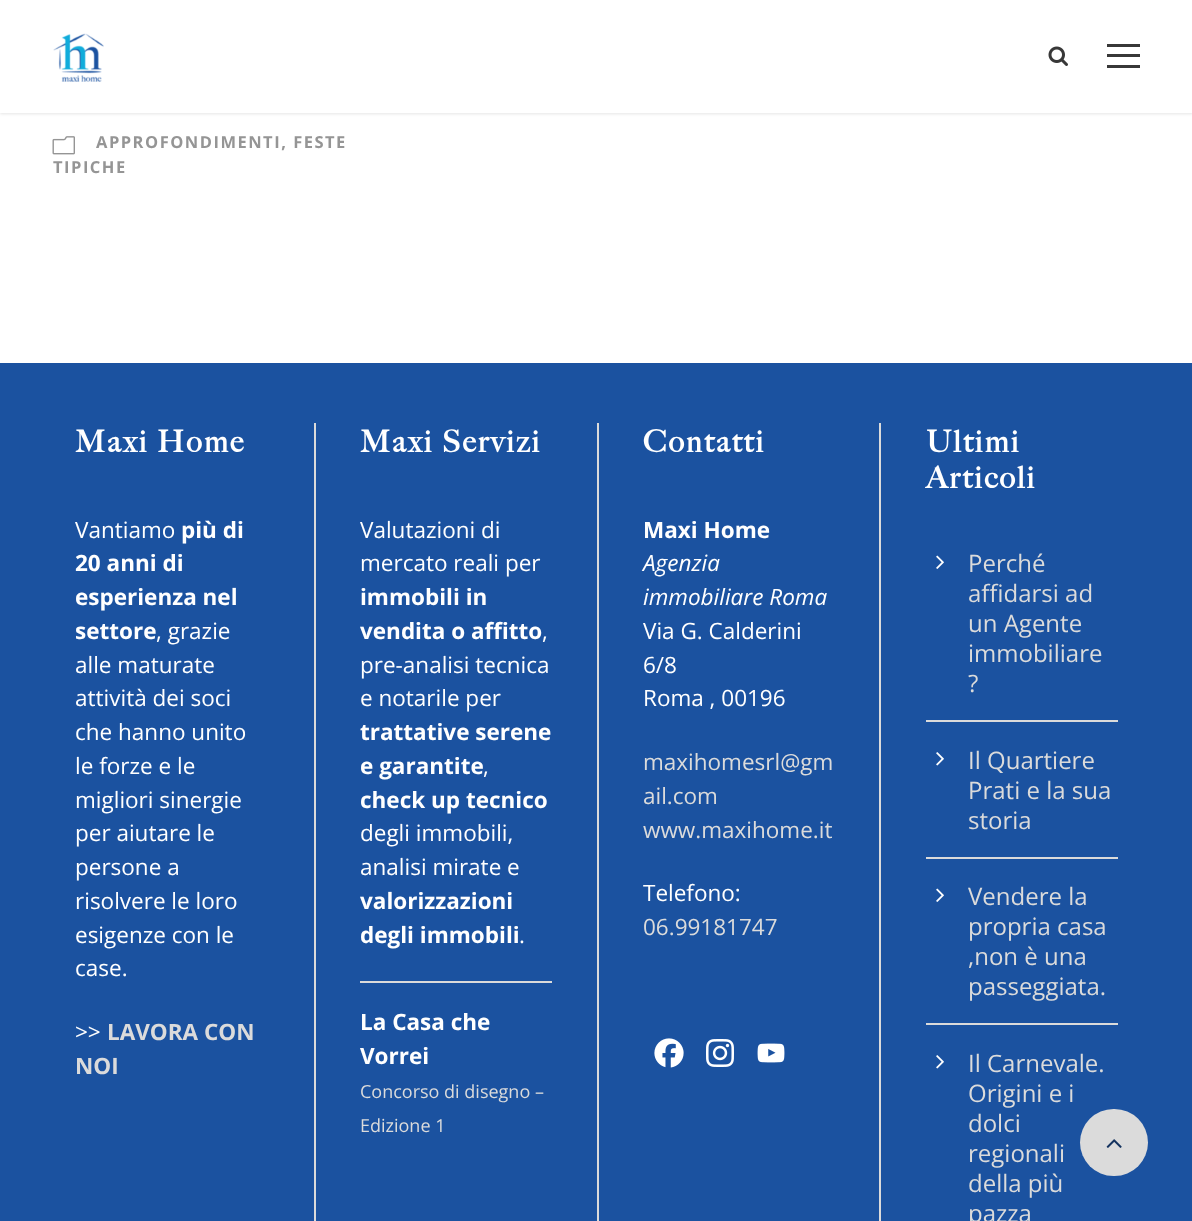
<svg xmlns="http://www.w3.org/2000/svg" width="1192" height="1221">
<rect width="100%" height="100%" fill="#fff"/>
<rect y="2" width="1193" height="112" fill="#0000001a" filter="blur(1.5px)"/>
<rect width="1192" height="113" fill="#fff"/>
<image x="53" y="33" width="51" height="49" href="media/1.png"/>
<image x="1048" y="46" width="20" height="20" href="media/2.png"/>
<rect x="1107" y="44" width="33" height="3" fill="#383838"/>
<rect x="1107" y="54" width="33" height="3" fill="#383838"/>
<rect x="1107" y="65" width="33" height="3" fill="#383838"/>
<image x="52" y="136" width="23" height="19" href="media/3.png"/>
<text x="96" y="148" style="font-family:Open Sans;font-size:16.5px;font-weight:bold;letter-spacing:1.5px;fill:#959595">APPROFONDIMENTI, FESTE</text>
<text x="53" y="173" style="font-family:Open Sans;font-size:16.5px;font-weight:bold;letter-spacing:1.5px;fill:#959595">TIPICHE</text>
<rect y="363" width="1192" height="858" fill="#1b52a0"/>
<text x="75" y="452" style="font-family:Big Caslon;font-size:30px;font-weight:bold;letter-spacing:2.25px;fill:#fff">Maxi Home</text>
<text x="75" y="538" style="font-family:Open Sans;font-size:22.5px;fill:#fff">Vantiamo</text>
<text x="181" y="538" style="font-family:Open Sans;font-size:22.5px;font-weight:bold;fill:#fff">più di</text>
<text x="75" y="571" style="font-family:Open Sans;font-size:22.5px;font-weight:bold;fill:#fff">20 anni di</text>
<text x="75" y="605" style="font-family:Open Sans;font-size:22.5px;font-weight:bold;fill:#fff">esperienza nel</text>
<text x="75" y="639" style="font-family:Open Sans;font-size:22.5px;font-weight:bold;fill:#fff">settore</text>
<text x="156" y="639" style="font-family:Open Sans;font-size:22.5px;fill:#fff">, grazie</text>
<text x="75" y="673" style="font-family:Open Sans;font-size:22.5px;fill:#fff">alle maturate</text>
<text x="75" y="706" style="font-family:Open Sans;font-size:22.5px;fill:#fff">attività dei soci</text>
<text x="75" y="740" style="font-family:Open Sans;font-size:22.5px;fill:#fff">che hanno unito</text>
<text x="75" y="774" style="font-family:Open Sans;font-size:22.5px;fill:#fff">le forze e le</text>
<text x="75" y="808" style="font-family:Open Sans;font-size:22.5px;fill:#fff">migliori sinergie</text>
<text x="75" y="841" style="font-family:Open Sans;font-size:22.5px;fill:#fff">per aiutare le</text>
<text x="75" y="875" style="font-family:Open Sans;font-size:22.5px;fill:#fff">persone a</text>
<text x="75" y="909" style="font-family:Open Sans;font-size:22.5px;fill:#fff">risolvere le loro</text>
<text x="75" y="943" style="font-family:Open Sans;font-size:22.5px;fill:#fff">esigenze con le</text>
<text x="75" y="976" style="font-family:Open Sans;font-size:22.5px;fill:#fff">case.</text>
<text x="75" y="1040" style="font-family:Open Sans;font-size:22.5px;fill:#fff">&gt;&gt;</text>
<text x="107" y="1040" style="font-family:Open Sans;font-size:22.5px;font-weight:bold;fill:#dbdbdb">LAVORA CON</text>
<text x="75" y="1074" style="font-family:Open Sans;font-size:22.5px;font-weight:bold;fill:#dbdbdb">NOI</text>
<rect x="314" y="423" width="2" height="798" fill="#dbdbdb"/>
<text x="360" y="452" style="font-family:Big Caslon;font-size:30px;font-weight:bold;letter-spacing:2.25px;fill:#fff">Maxi Servizi</text>
<text x="360" y="538" style="font-family:Open Sans;font-size:22.5px;fill:#fff">Valutazioni di</text>
<text x="360" y="571" style="font-family:Open Sans;font-size:22.5px;fill:#fff">mercato reali per</text>
<text x="360" y="605" style="font-family:Open Sans;font-size:22.5px;font-weight:bold;fill:#fff">immobili in</text>
<text x="360" y="639" style="font-family:Open Sans;font-size:22.5px;font-weight:bold;fill:#fff">vendita o affitto</text>
<text x="542" y="639" style="font-family:Open Sans;font-size:22.5px;fill:#fff">,</text>
<text x="360" y="673" style="font-family:Open Sans;font-size:22.5px;fill:#fff">pre-analisi tecnica</text>
<text x="360" y="706" style="font-family:Open Sans;font-size:22.5px;fill:#fff">e notarile per</text>
<text x="360" y="740" style="font-family:Open Sans;font-size:22.5px;font-weight:bold;fill:#fff">trattative serene</text>
<text x="360" y="774" style="font-family:Open Sans;font-size:22.5px;font-weight:bold;fill:#fff">e garantite</text>
<text x="483" y="774" style="font-family:Open Sans;font-size:22.5px;fill:#fff">,</text>
<text x="360" y="808" style="font-family:Open Sans;font-size:22.5px;font-weight:bold;fill:#fff">check up tecnico</text>
<text x="360" y="841" style="font-family:Open Sans;font-size:22.5px;fill:#fff">degli immobili,</text>
<text x="360" y="875" style="font-family:Open Sans;font-size:22.5px;fill:#fff">analisi mirate e</text>
<text x="360" y="909" style="font-family:Open Sans;font-size:22.5px;font-weight:bold;fill:#fff">valorizzazioni</text>
<text x="360" y="943" style="font-family:Open Sans;font-size:22.5px;font-weight:bold;fill:#fff">degli immobili</text>
<text x="519" y="943" style="font-family:Open Sans;font-size:22.5px;fill:#fff">.</text>
<rect x="360" y="981" width="192" height="2" fill="#dbdbdb"/>
<text x="360" y="1030" style="font-family:Open Sans;font-size:22.5px;font-weight:bold;fill:#fff">La Casa che</text>
<text x="360" y="1064" style="font-family:Open Sans;font-size:22.5px;font-weight:bold;fill:#fff">Vorrei</text>
<text x="360" y="1098" style="font-family:Open Sans;font-size:18px;fill:#dbdbdb">Concorso di disegno –</text>
<text x="360" y="1132" style="font-family:Open Sans;font-size:18px;fill:#dbdbdb">Edizione 1</text>
<rect x="597" y="423" width="2" height="798" fill="#dbdbdb"/>
<text x="643" y="452" style="font-family:Big Caslon;font-size:30px;font-weight:bold;letter-spacing:2.25px;fill:#fff">Contatti</text>
<text x="643" y="538" style="font-family:Open Sans;font-size:22.5px;font-weight:bold;fill:#fff">Maxi Home</text>
<text x="643" y="571" style="font-family:Open Sans;font-size:22.5px;font-style:italic;fill:#fff">Agenzia</text>
<text x="643" y="605" style="font-family:Open Sans;font-size:22.5px;font-style:italic;fill:#fff">immobiliare Roma</text>
<text x="643" y="639" style="font-family:Open Sans;font-size:22.5px;fill:#fff">Via G. Calderini</text>
<text x="643" y="673" style="font-family:Open Sans;font-size:22.5px;fill:#fff">6/8</text>
<text x="643" y="706" style="font-family:Open Sans;font-size:22.5px;fill:#fff">Roma , 00196</text>
<text x="643" y="770" style="font-family:Open Sans;font-size:22.5px;fill:#dbdbdb">maxihomesrl@gm</text>
<text x="643" y="804" style="font-family:Open Sans;font-size:22.5px;fill:#dbdbdb">ail.com</text>
<text x="643" y="838" style="font-family:Open Sans;font-size:22.5px;fill:#dbdbdb">www.maxihome.it</text>
<text x="643" y="901" style="font-family:Open Sans;font-size:22.5px;fill:#fff">Telefono:</text>
<text x="643" y="935" style="font-family:Open Sans;font-size:22.5px;fill:#dbdbdb">06.99181747</text>
<image x="654" y="1038" width="30" height="30" href="media/4.png"/>
<image x="706" y="1039" width="28" height="28" href="media/5.png"/>
<image x="757" y="1043" width="28" height="20" href="media/6.png"/>
<rect x="879" y="423" width="2" height="798" fill="#dbdbdb"/>
<text x="926" y="452" style="font-family:Big Caslon;font-size:30px;font-weight:bold;letter-spacing:2.25px;fill:#fff">Ultimi</text>
<text x="926" y="488" style="font-family:Big Caslon;font-size:30px;font-weight:bold;letter-spacing:2.25px;fill:#fff">Articoli</text>
<rect x="926" y="720" width="192" height="2" fill="#dbdbdb"/>
<image x="936" y="555" width="8" height="14" href="media/7.png"/>
<text x="968" y="572" style="font-family:Open Sans;font-size:24px;fill:#dbdbdb">Perché</text>
<text x="968" y="602" style="font-family:Open Sans;font-size:24px;fill:#dbdbdb">affidarsi ad</text>
<text x="968" y="632" style="font-family:Open Sans;font-size:24px;fill:#dbdbdb">un Agente</text>
<text x="968" y="662" style="font-family:Open Sans;font-size:24px;fill:#dbdbdb">immobiliare</text>
<text x="968" y="692" style="font-family:Open Sans;font-size:24px;fill:#dbdbdb">?</text>
<rect x="926" y="857" width="192" height="2" fill="#dbdbdb"/>
<image x="936" y="752" width="8" height="14" href="media/8.png"/>
<text x="968" y="769" style="font-family:Open Sans;font-size:24px;fill:#dbdbdb">Il Quartiere</text>
<text x="968" y="799" style="font-family:Open Sans;font-size:24px;fill:#dbdbdb">Prati e la sua</text>
<text x="968" y="829" style="font-family:Open Sans;font-size:24px;fill:#dbdbdb">storia</text>
<rect x="926" y="1023" width="192" height="2" fill="#dbdbdb"/>
<image x="936" y="888" width="8" height="14" href="media/7.png"/>
<text x="968" y="905" style="font-family:Open Sans;font-size:24px;fill:#dbdbdb">Vendere la</text>
<text x="968" y="935" style="font-family:Open Sans;font-size:24px;fill:#dbdbdb">propria casa</text>
<text x="968" y="965" style="font-family:Open Sans;font-size:24px;fill:#dbdbdb">,non è una</text>
<text x="968" y="995" style="font-family:Open Sans;font-size:24px;fill:#dbdbdb">passeggiata.</text>
<image x="936" y="1055" width="8" height="14" href="media/8.png"/>
<text x="968" y="1072" style="font-family:Open Sans;font-size:24px;fill:#dbdbdb">Il Carnevale.</text>
<text x="968" y="1102" style="font-family:Open Sans;font-size:24px;fill:#dbdbdb">Origini e i</text>
<text x="968" y="1132" style="font-family:Open Sans;font-size:24px;fill:#dbdbdb">dolci</text>
<text x="968" y="1162" style="font-family:Open Sans;font-size:24px;fill:#dbdbdb">regionali</text>
<text x="968" y="1192" style="font-family:Open Sans;font-size:24px;fill:#dbdbdb">della più</text>
<text x="968" y="1222" style="font-family:Open Sans;font-size:24px;fill:#dbdbdb">pazza</text>
<rect x="1080" y="1109" width="68" height="67" rx="33.5" fill="#dbdbdb"/>
<image x="1106" y="1139" width="16" height="9" href="media/9.png"/>
</svg>
